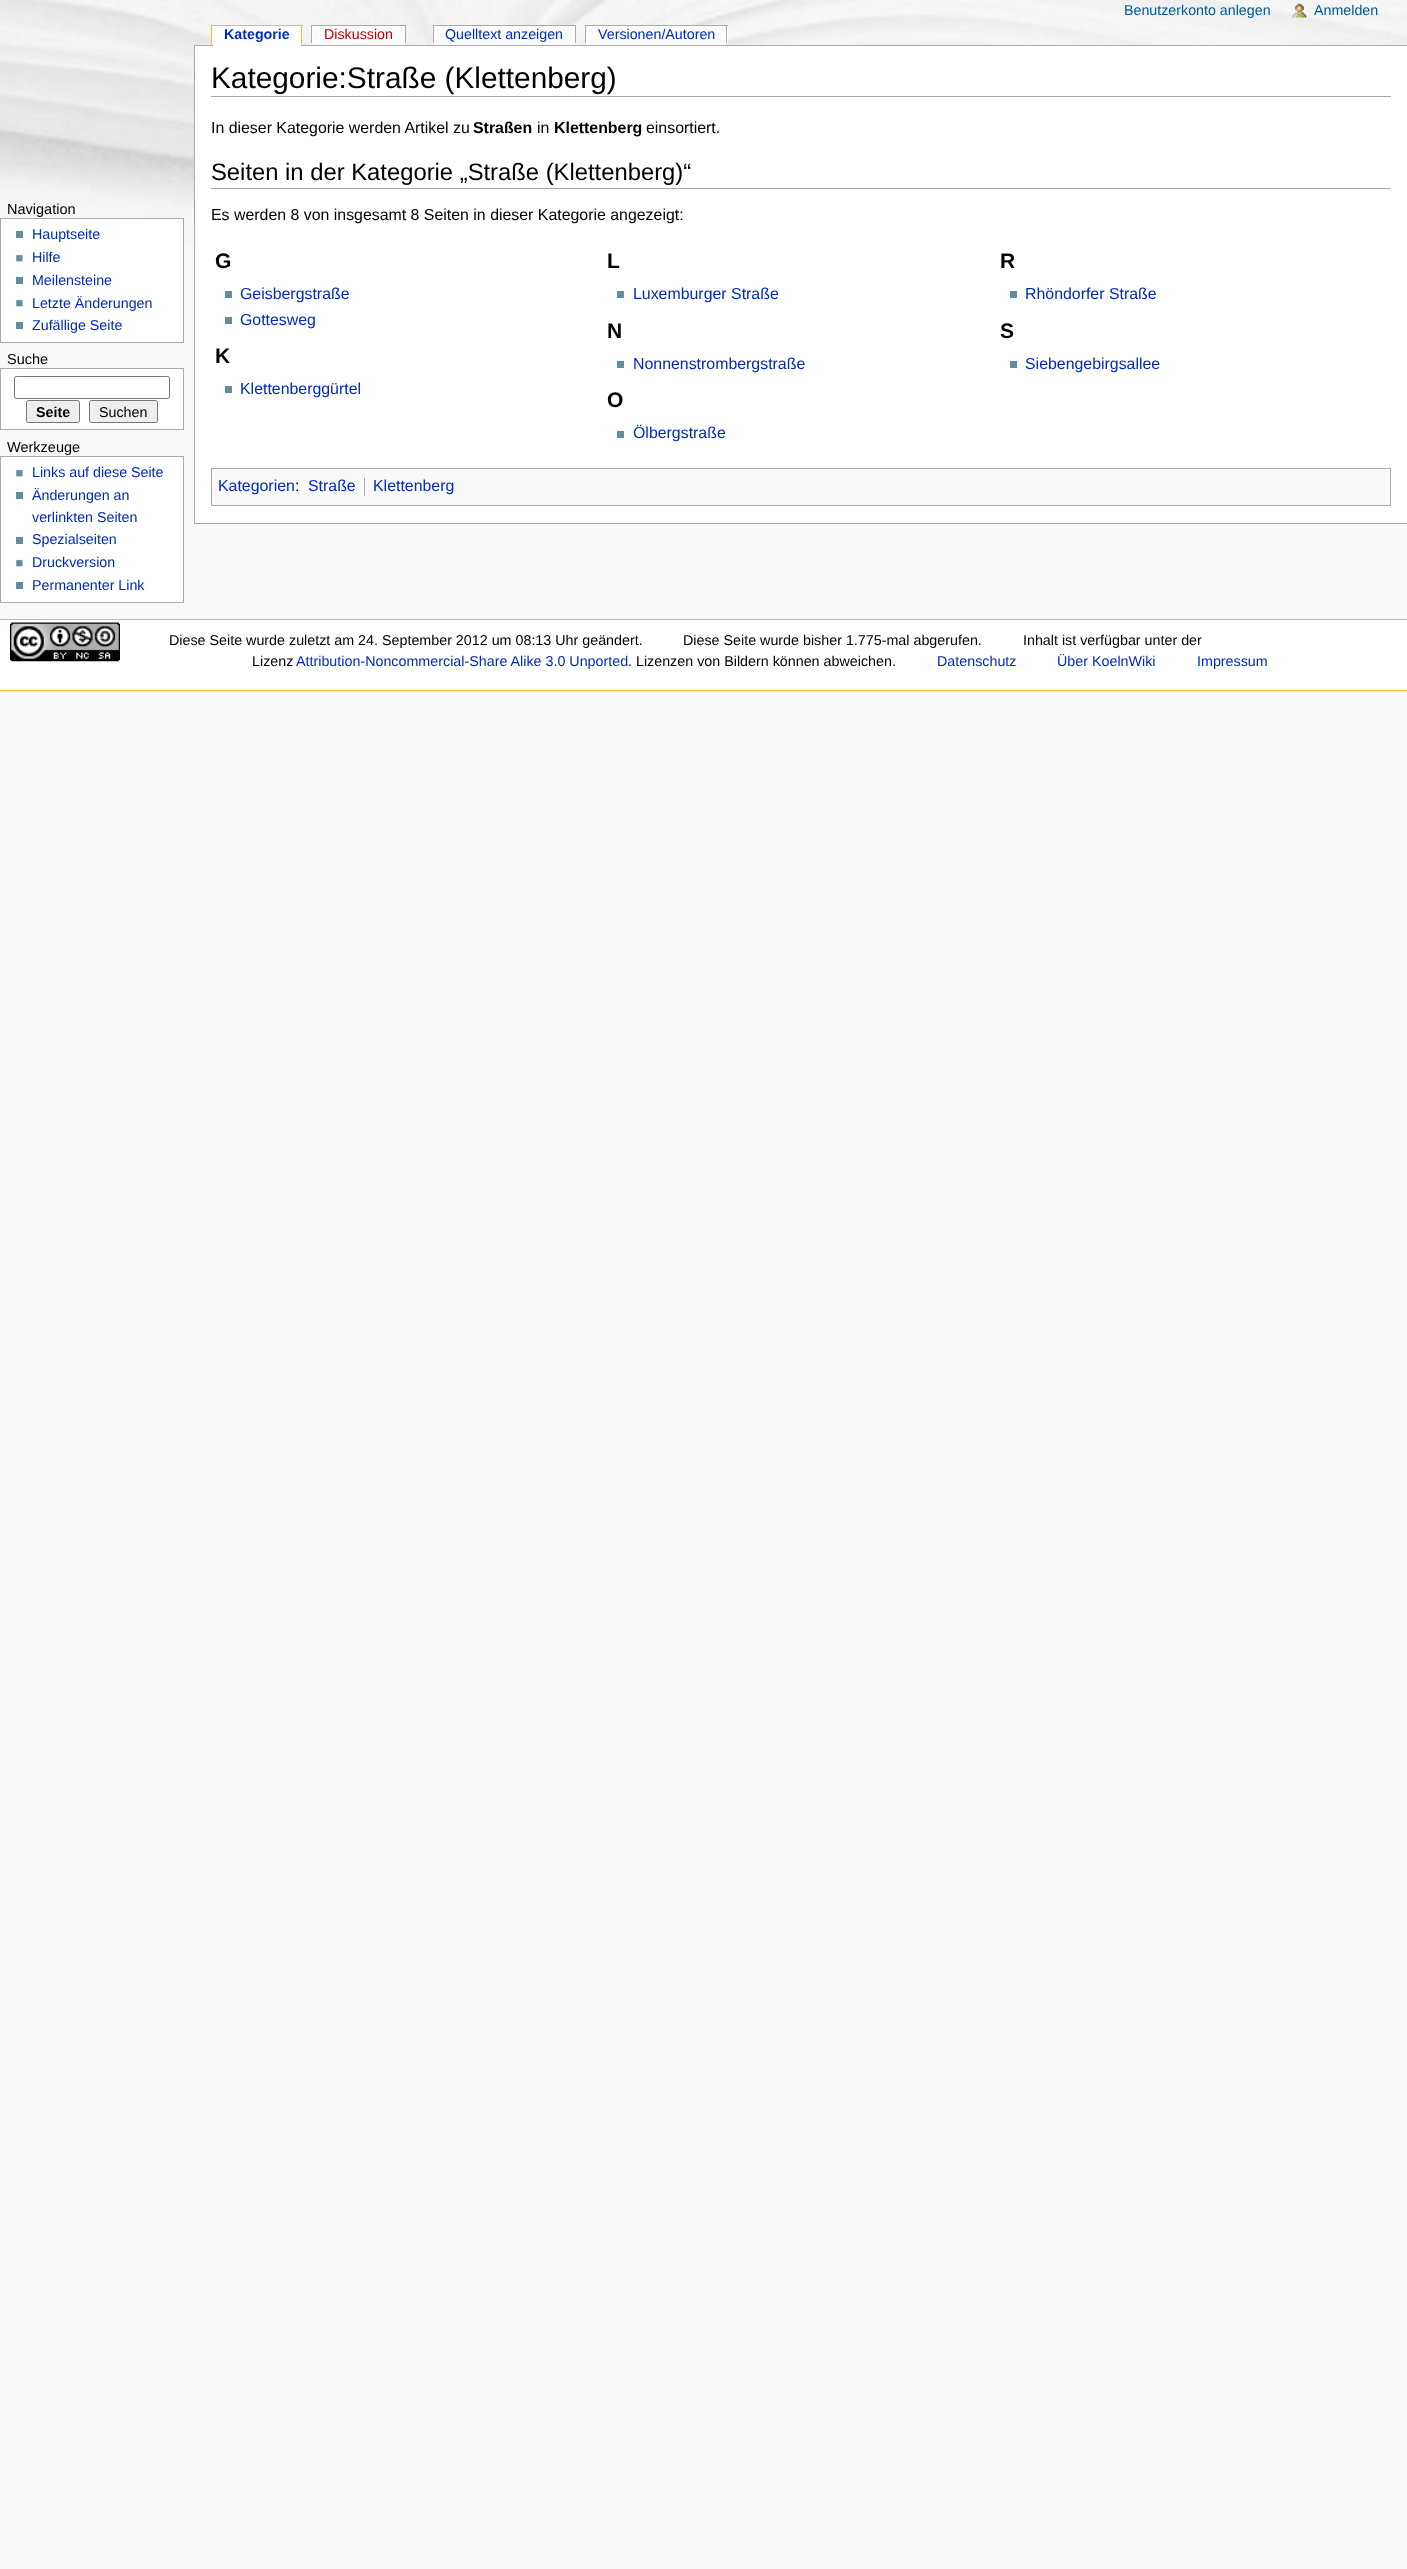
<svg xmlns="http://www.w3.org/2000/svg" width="1407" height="2569">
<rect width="100%" height="100%" fill="#f9f9f9"/>
<image x="0" y="0" width="1407" height="243" href="media/1.png"/>
<text x="1124" y="15" style="font-family:Liberation Sans;font-size:14.25px;fill:#005896">Benutzerkonto anlegen</text>
<image x="1292" y="3" width="15" height="15" href="media/2.png"/>
<text x="1314" y="15" style="font-family:Liberation Sans;font-size:14.25px;fill:#005896">Anmelden</text>
<rect x="212" y="26" width="91" height="18" fill="#fff"/>
<text x="224" y="39" style="font-family:Liberation Sans;font-size:14.25px;font-weight:bold;fill:#002bb8">Kategorie</text>
<rect x="211" y="25" width="92" height="1" fill="#fabd23"/>
<rect x="301" y="25" width="1" height="19" fill="#fabd23"/>
<rect x="211" y="25" width="1" height="19" fill="#fabd23"/>
<rect x="194" y="45" width="1213" height="1" fill="#aaa"/>
<rect x="213" y="44" width="88" height="2" fill="#fff"/>
<rect x="313" y="26" width="92" height="19" fill="#fbfbfb"/>
<text x="324" y="39" style="font-family:Liberation Sans;font-size:14.25px;fill:#ba0000">Diskussion</text>
<rect x="312" y="26" width="1" height="17" fill="#fff"/>
<rect x="311" y="25" width="95" height="1" fill="#aaa"/>
<rect x="405" y="25" width="1" height="18" fill="#aaa"/>
<rect x="311" y="25" width="1" height="18" fill="#aaa"/>
<rect x="434" y="26" width="141" height="19" fill="#fbfbfb"/>
<text x="445" y="39" style="font-family:Liberation Sans;font-size:14.25px;fill:#002bb8">Quelltext anzeigen</text>
<rect x="433" y="25" width="143" height="1" fill="#aaa"/>
<rect x="575" y="25" width="1" height="18" fill="#aaa"/>
<rect x="433" y="25" width="1" height="18" fill="#aaa"/>
<rect x="586" y="26" width="140" height="19" fill="#fbfbfb"/>
<text x="598" y="39" style="font-family:Liberation Sans;font-size:14.25px;fill:#002bb8">Versionen/Autoren</text>
<rect x="727" y="26" width="1" height="17" fill="#fff"/>
<rect x="585" y="25" width="143" height="1" fill="#aaa"/>
<rect x="726" y="25" width="1" height="18" fill="#aaa"/>
<rect x="585" y="25" width="1" height="18" fill="#aaa"/>
<text x="7" y="214" style="font-family:Liberation Sans;font-size:14.5px;fill:#000">Navigation</text>
<rect x="0.5" y="218.5" width="183" height="124" fill="#fff" stroke="#aaa"/>
<rect x="16" y="231" width="7" height="7" fill="#638c9c"/>
<text x="32" y="239" style="font-family:Liberation Sans;font-size:14.25px;fill:#002bb8">Hauptseite</text>
<image x="16" y="254" width="7" height="8" href="media/3.png"/>
<text x="32" y="262" style="font-family:Liberation Sans;font-size:14.25px;fill:#002bb8">Hilfe</text>
<rect x="16" y="277" width="7" height="7" fill="#638c9c"/>
<text x="32" y="285" style="font-family:Liberation Sans;font-size:14.25px;fill:#002bb8">Meilensteine</text>
<image x="16" y="299" width="7" height="8" href="media/3.png"/>
<text x="32" y="308" style="font-family:Liberation Sans;font-size:14.25px;fill:#002bb8">Letzte Änderungen</text>
<rect x="16" y="322" width="7" height="7" fill="#638c9c"/>
<text x="32" y="330" style="font-family:Liberation Sans;font-size:14.25px;fill:#002bb8">Zufällige Seite</text>
<text x="7" y="364" style="font-family:Liberation Sans;font-size:14.5px;fill:#000">Suche</text>
<rect x="0.5" y="368.5" width="183" height="61" fill="#fff" stroke="#aaa"/>
<rect x="14.5" y="376.5" width="155" height="22" rx="2" fill="none" stroke="#767676"/>
<rect x="26.5" y="400.5" width="53" height="22" rx="2" fill="#efefef" stroke="#767676"/>
<text x="36" y="417" style="font-family:Liberation Sans;font-size:14.25px;font-weight:bold;fill:#000">Seite</text>
<rect x="89.5" y="400.5" width="68" height="22" rx="2" fill="#efefef" stroke="#767676"/>
<text x="99" y="417" style="font-family:Liberation Sans;font-size:14.25px;fill:#000">Suchen</text>
<text x="7" y="452" style="font-family:Liberation Sans;font-size:14.5px;fill:#000">Werkzeuge</text>
<rect x="0.5" y="456.5" width="183" height="146" fill="#fff" stroke="#aaa"/>
<image x="16" y="469" width="7" height="8" href="media/3.png"/>
<text x="32" y="477" style="font-family:Liberation Sans;font-size:14.25px;fill:#002bb8">Links auf diese Seite</text>
<rect x="16" y="492" width="7" height="7" fill="#638c9c"/>
<text x="32" y="500" style="font-family:Liberation Sans;font-size:14.25px;fill:#002bb8">Änderungen an</text>
<text x="32" y="522" style="font-family:Liberation Sans;font-size:14.25px;fill:#002bb8">verlinkten Seiten</text>
<rect x="16" y="537" width="7" height="7" fill="#638c9c"/>
<text x="32" y="544" style="font-family:Liberation Sans;font-size:14.25px;fill:#002bb8">Spezialseiten</text>
<image x="16" y="559" width="7" height="8" href="media/3.png"/>
<text x="32" y="567" style="font-family:Liberation Sans;font-size:14.25px;fill:#002bb8">Druckversion</text>
<rect x="16" y="582" width="7" height="7" fill="#638c9c"/>
<text x="32" y="590" style="font-family:Liberation Sans;font-size:14.25px;fill:#002bb8">Permanenter Link</text>
<rect x="195" y="46" width="1212" height="477" fill="#fff"/>
<rect x="194" y="523" width="1213" height="1" fill="#aaa"/>
<rect x="194" y="45" width="1" height="479" fill="#aaa"/>
<rect x="211" y="96" width="1180" height="1" fill="#aaa"/>
<text x="211" y="88" style="font-family:Liberation Sans;font-size:29.8px;fill:#000">Kategorie:Straße (Klettenberg)</text>
<text x="211" y="133" style="font-family:Liberation Sans;font-size:15.9px;fill:#000">In dieser Kategorie werden Artikel zu</text>
<text x="473" y="133" style="font-family:Liberation Sans;font-size:15.9px;font-weight:bold;fill:#000">Straßen</text>
<text x="537" y="133" style="font-family:Liberation Sans;font-size:15.9px;fill:#000">in</text>
<text x="554" y="133" style="font-family:Liberation Sans;font-size:15.9px;font-weight:bold;fill:#000">Klettenberg</text>
<text x="646" y="133" style="font-family:Liberation Sans;font-size:15.9px;fill:#000">einsortiert.</text>
<rect x="211" y="188" width="1180" height="1" fill="#aaa"/>
<text x="211" y="180" style="font-family:Liberation Sans;font-size:23.8px;fill:#000">Seiten in der Kategorie „Straße (Klettenberg)“</text>
<text x="211" y="220" style="font-family:Liberation Sans;font-size:15.9px;fill:#000">Es werden 8 von insgesamt 8 Seiten in dieser Kategorie angezeigt:</text>
<text x="215" y="268" style="font-family:Liberation Sans;font-size:21px;font-weight:bold;fill:#000">G</text>
<rect x="225" y="291" width="7" height="7" fill="#638c9c"/>
<text x="240" y="299" style="font-family:Liberation Sans;font-size:15.9px;fill:#002bb8">Geisbergstraße</text>
<rect x="225" y="317" width="7" height="7" fill="#638c9c"/>
<text x="240" y="325" style="font-family:Liberation Sans;font-size:15.9px;fill:#002bb8">Gottesweg</text>
<text x="215" y="363" style="font-family:Liberation Sans;font-size:21px;font-weight:bold;fill:#000">K</text>
<rect x="225" y="386" width="7" height="7" fill="#638c9c"/>
<text x="240" y="394" style="font-family:Liberation Sans;font-size:15.9px;fill:#002bb8">Klettenberggürtel</text>
<text x="607" y="268" style="font-family:Liberation Sans;font-size:21px;font-weight:bold;fill:#000">L</text>
<rect x="617" y="291" width="7" height="7" fill="#638c9c"/>
<text x="633" y="299" style="font-family:Liberation Sans;font-size:15.9px;fill:#002bb8">Luxemburger Straße</text>
<text x="607" y="338" style="font-family:Liberation Sans;font-size:21px;font-weight:bold;fill:#000">N</text>
<rect x="617" y="361" width="7" height="7" fill="#638c9c"/>
<text x="633" y="369" style="font-family:Liberation Sans;font-size:15.9px;fill:#002bb8">Nonnenstrombergstraße</text>
<text x="607" y="407" style="font-family:Liberation Sans;font-size:21px;font-weight:bold;fill:#000">O</text>
<rect x="617" y="431" width="7" height="7" fill="#638c9c"/>
<text x="633" y="438" style="font-family:Liberation Sans;font-size:15.9px;fill:#002bb8">Ölbergstraße</text>
<text x="1000" y="268" style="font-family:Liberation Sans;font-size:21px;font-weight:bold;fill:#000">R</text>
<rect x="1010" y="291" width="7" height="7" fill="#638c9c"/>
<text x="1025" y="299" style="font-family:Liberation Sans;font-size:15.9px;fill:#002bb8">Rhöndorfer Straße</text>
<text x="1000" y="338" style="font-family:Liberation Sans;font-size:21px;font-weight:bold;fill:#000">S</text>
<rect x="1010" y="361" width="7" height="7" fill="#638c9c"/>
<text x="1025" y="369" style="font-family:Liberation Sans;font-size:15.9px;fill:#002bb8">Siebengebirgsallee</text>
<rect x="211.5" y="468.5" width="1179" height="37" fill="#f9f9f9" stroke="#aaa"/>
<text x="218" y="491" style="font-family:Liberation Sans;font-size:15.9px;fill:#002bb8">Kategorien</text>
<text x="295" y="491" style="font-family:Liberation Sans;font-size:15.9px;fill:#000">:</text>
<text x="308" y="491" style="font-family:Liberation Sans;font-size:15.9px;fill:#002bb8">Straße</text>
<rect x="364" y="478" width="1" height="18" fill="#aaa"/>
<text x="373" y="491" style="font-family:Liberation Sans;font-size:15.9px;fill:#002bb8">Klettenberg</text>
<rect y="620" width="1407" height="70" fill="#fff"/>
<rect y="619" width="1407" height="1" fill="#fabd23"/>
<rect y="690" width="1407" height="1" fill="#fabd23"/>
<image x="10" y="622" width="110" height="40" href="media/4.png"/>
<text x="169" y="645" style="font-family:Liberation Sans;font-size:14.3px;fill:#000">Diese Seite wurde zuletzt am 24. September 2012 um 08:13 Uhr geändert.</text>
<text x="683" y="645" style="font-family:Liberation Sans;font-size:14.3px;fill:#000">Diese Seite wurde bisher 1.775-mal abgerufen.</text>
<text x="1023" y="645" style="font-family:Liberation Sans;font-size:14.3px;fill:#000">Inhalt ist verfügbar unter der</text>
<text x="252" y="666" style="font-family:Liberation Sans;font-size:14.3px;fill:#000">Lizenz</text>
<text x="296" y="666" style="font-family:Liberation Sans;font-size:14.3px;fill:#002bb8">Attribution-Noncommercial-Share Alike 3.0 Unported</text>
<text x="628" y="666" style="font-family:Liberation Sans;font-size:14.3px;fill:#000">. Lizenzen von Bildern können abweichen.</text>
<text x="937" y="666" style="font-family:Liberation Sans;font-size:14.3px;fill:#002bb8">Datenschutz</text>
<text x="1057" y="666" style="font-family:Liberation Sans;font-size:14.3px;fill:#002bb8">Über KoelnWiki</text>
<text x="1197" y="666" style="font-family:Liberation Sans;font-size:14.3px;fill:#002bb8">Impressum</text>
</svg>
